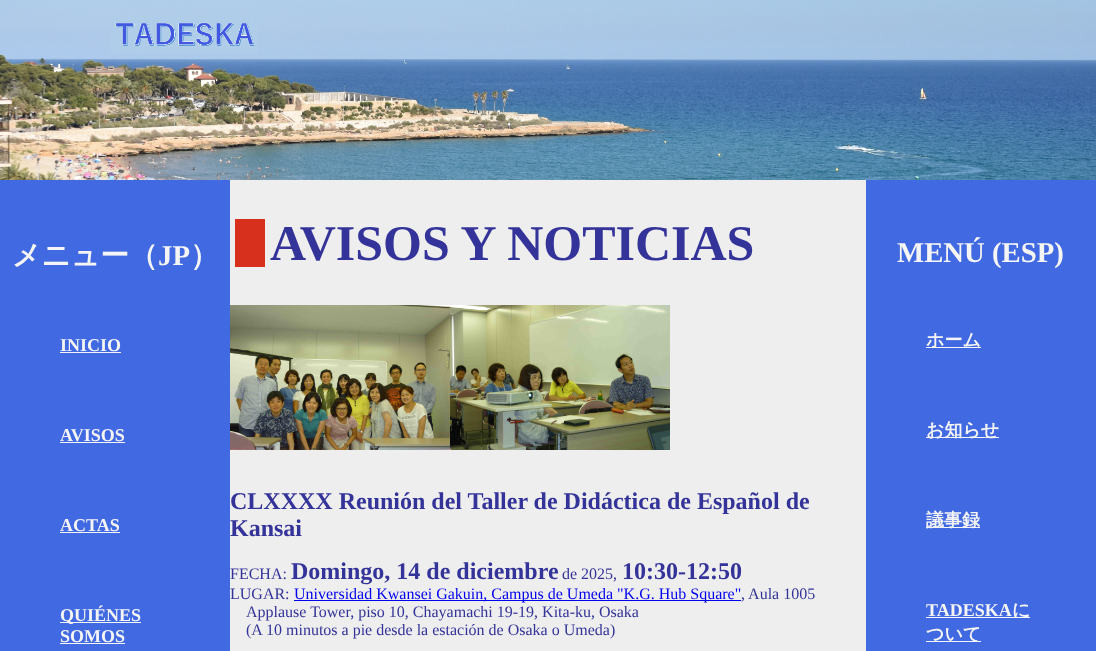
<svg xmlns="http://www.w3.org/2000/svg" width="1096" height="651">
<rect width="100%" height="100%" fill="#fff"/>
<image x="0" y="0" width="1096" height="180" href="media/1.png"/>
<rect y="180" width="230" height="471" fill="#4169e1"/>
<text x="12" y="265" style="font-family:WenQuanYi Zen Hei;font-size:28.75px;font-weight:bold;fill:#f5f5f5">メニュー（</text>
<text x="158" y="265" style="font-family:Liberation Serif;font-size:28.75px;font-weight:bold;fill:#f5f5f5">JP</text>
<text x="190" y="265" style="font-family:WenQuanYi Zen Hei;font-size:28.75px;font-weight:bold;fill:#f5f5f5">）</text>
<text x="60" y="351" style="font-family:Liberation Serif;font-size:18px;font-weight:bold;fill:#f5f5f5">INICIO</text>
<rect x="60" y="352" width="61" height="1" fill="#f5f5f5"/>
<text x="60" y="441" style="font-family:Liberation Serif;font-size:18px;font-weight:bold;fill:#f5f5f5">AVISOS</text>
<rect x="60" y="442" width="65" height="1" fill="#f5f5f5"/>
<text x="60" y="531" style="font-family:Liberation Serif;font-size:18px;font-weight:bold;fill:#f5f5f5">ACTAS</text>
<rect x="60" y="532" width="60" height="1" fill="#f5f5f5"/>
<rect x="60" y="622" width="81" height="1" fill="#f5f5f5"/>
<text x="60" y="621" style="font-family:Liberation Serif;font-size:18px;font-weight:bold;fill:#f5f5f5">QUIÉNES</text>
<text x="60" y="642" style="font-family:Liberation Serif;font-size:18px;font-weight:bold;fill:#f5f5f5">SOMOS</text>
<rect x="60" y="643" width="65" height="1" fill="#f5f5f5"/>
<rect x="230" y="180" width="636" height="471" fill="#eee"/>
<rect x="235" y="219" width="30" height="48" fill="#d7301d"/>
<text x="270" y="260" style="font-family:Liberation Serif;font-size:50px;font-weight:bold;fill:#339">AVISOS Y NOTICIAS</text>
<image x="230" y="305" width="220" height="145" href="media/2.png"/>
<image x="450" y="305" width="220" height="145" href="media/3.png"/>
<text x="230" y="509" style="font-family:Liberation Serif;font-size:24px;font-weight:bold;fill:#339">CLXXXX Reunión del Taller de Didáctica de Español de</text>
<text x="230" y="536" style="font-family:Liberation Serif;font-size:24px;font-weight:bold;fill:#339">Kansai</text>
<text x="230" y="579" style="font-family:Liberation Serif;font-size:16px;fill:#339">FECHA:</text>
<text x="291" y="579" style="font-family:Liberation Serif;font-size:24px;font-weight:bold;fill:#339">Domingo, 14 de diciembre</text>
<text x="562" y="579" style="font-family:Liberation Serif;font-size:16px;fill:#339">de 2025,</text>
<text x="622" y="579" style="font-family:Liberation Serif;font-size:24px;font-weight:bold;fill:#339">10:30-12:50</text>
<text x="230" y="599" style="font-family:Liberation Serif;font-size:16px;fill:#339">LUGAR:</text>
<rect x="294" y="600" width="447" height="1" fill="#00e"/>
<text x="294" y="599" style="font-family:Liberation Serif;font-size:16px;fill:#00e">Universidad Kwansei Gakuin, Campus de Umeda "K.G. Hub Square"</text>
<text x="741" y="599" style="font-family:Liberation Serif;font-size:16px;fill:#339">, Aula 1005</text>
<text x="246" y="617" style="font-family:Liberation Serif;font-size:16px;fill:#339">Applause Tower, piso 10, Chayamachi 19-19, Kita-ku, Osaka</text>
<text x="246" y="635" style="font-family:Liberation Serif;font-size:16px;fill:#339">(A 10 minutos a pie desde la estación de Osaka o Umeda)</text>
<rect x="866" y="180" width="230" height="471" fill="#4169e1"/>
<text x="897" y="262" style="font-family:Liberation Serif;font-size:28.75px;font-weight:bold;fill:#f5f5f5">MENÚ (ESP)</text>
<rect x="926" y="347" width="55" height="1" fill="#f5f5f5"/>
<text x="926" y="346" style="font-family:WenQuanYi Zen Hei;font-size:18px;font-weight:bold;fill:#f5f5f5">ホーム</text>
<rect x="926" y="437" width="73" height="1" fill="#f5f5f5"/>
<text x="926" y="436" style="font-family:WenQuanYi Zen Hei;font-size:18px;font-weight:bold;fill:#f5f5f5">お知らせ</text>
<rect x="926" y="527" width="54" height="1" fill="#f5f5f5"/>
<text x="926" y="526" style="font-family:WenQuanYi Zen Hei;font-size:18px;font-weight:bold;fill:#f5f5f5">議事録</text>
<text x="926" y="616" style="font-family:Liberation Serif;font-size:18px;font-weight:bold;fill:#f5f5f5">TADESKA</text>
<rect x="926" y="617" width="104" height="1" fill="#f5f5f5"/>
<text x="1012" y="616" style="font-family:WenQuanYi Zen Hei;font-size:18px;font-weight:bold;fill:#f5f5f5">に</text>
<rect x="926" y="641" width="55" height="1" fill="#f5f5f5"/>
<text x="926" y="640" style="font-family:WenQuanYi Zen Hei;font-size:18px;font-weight:bold;fill:#f5f5f5">ついて</text>
</svg>
